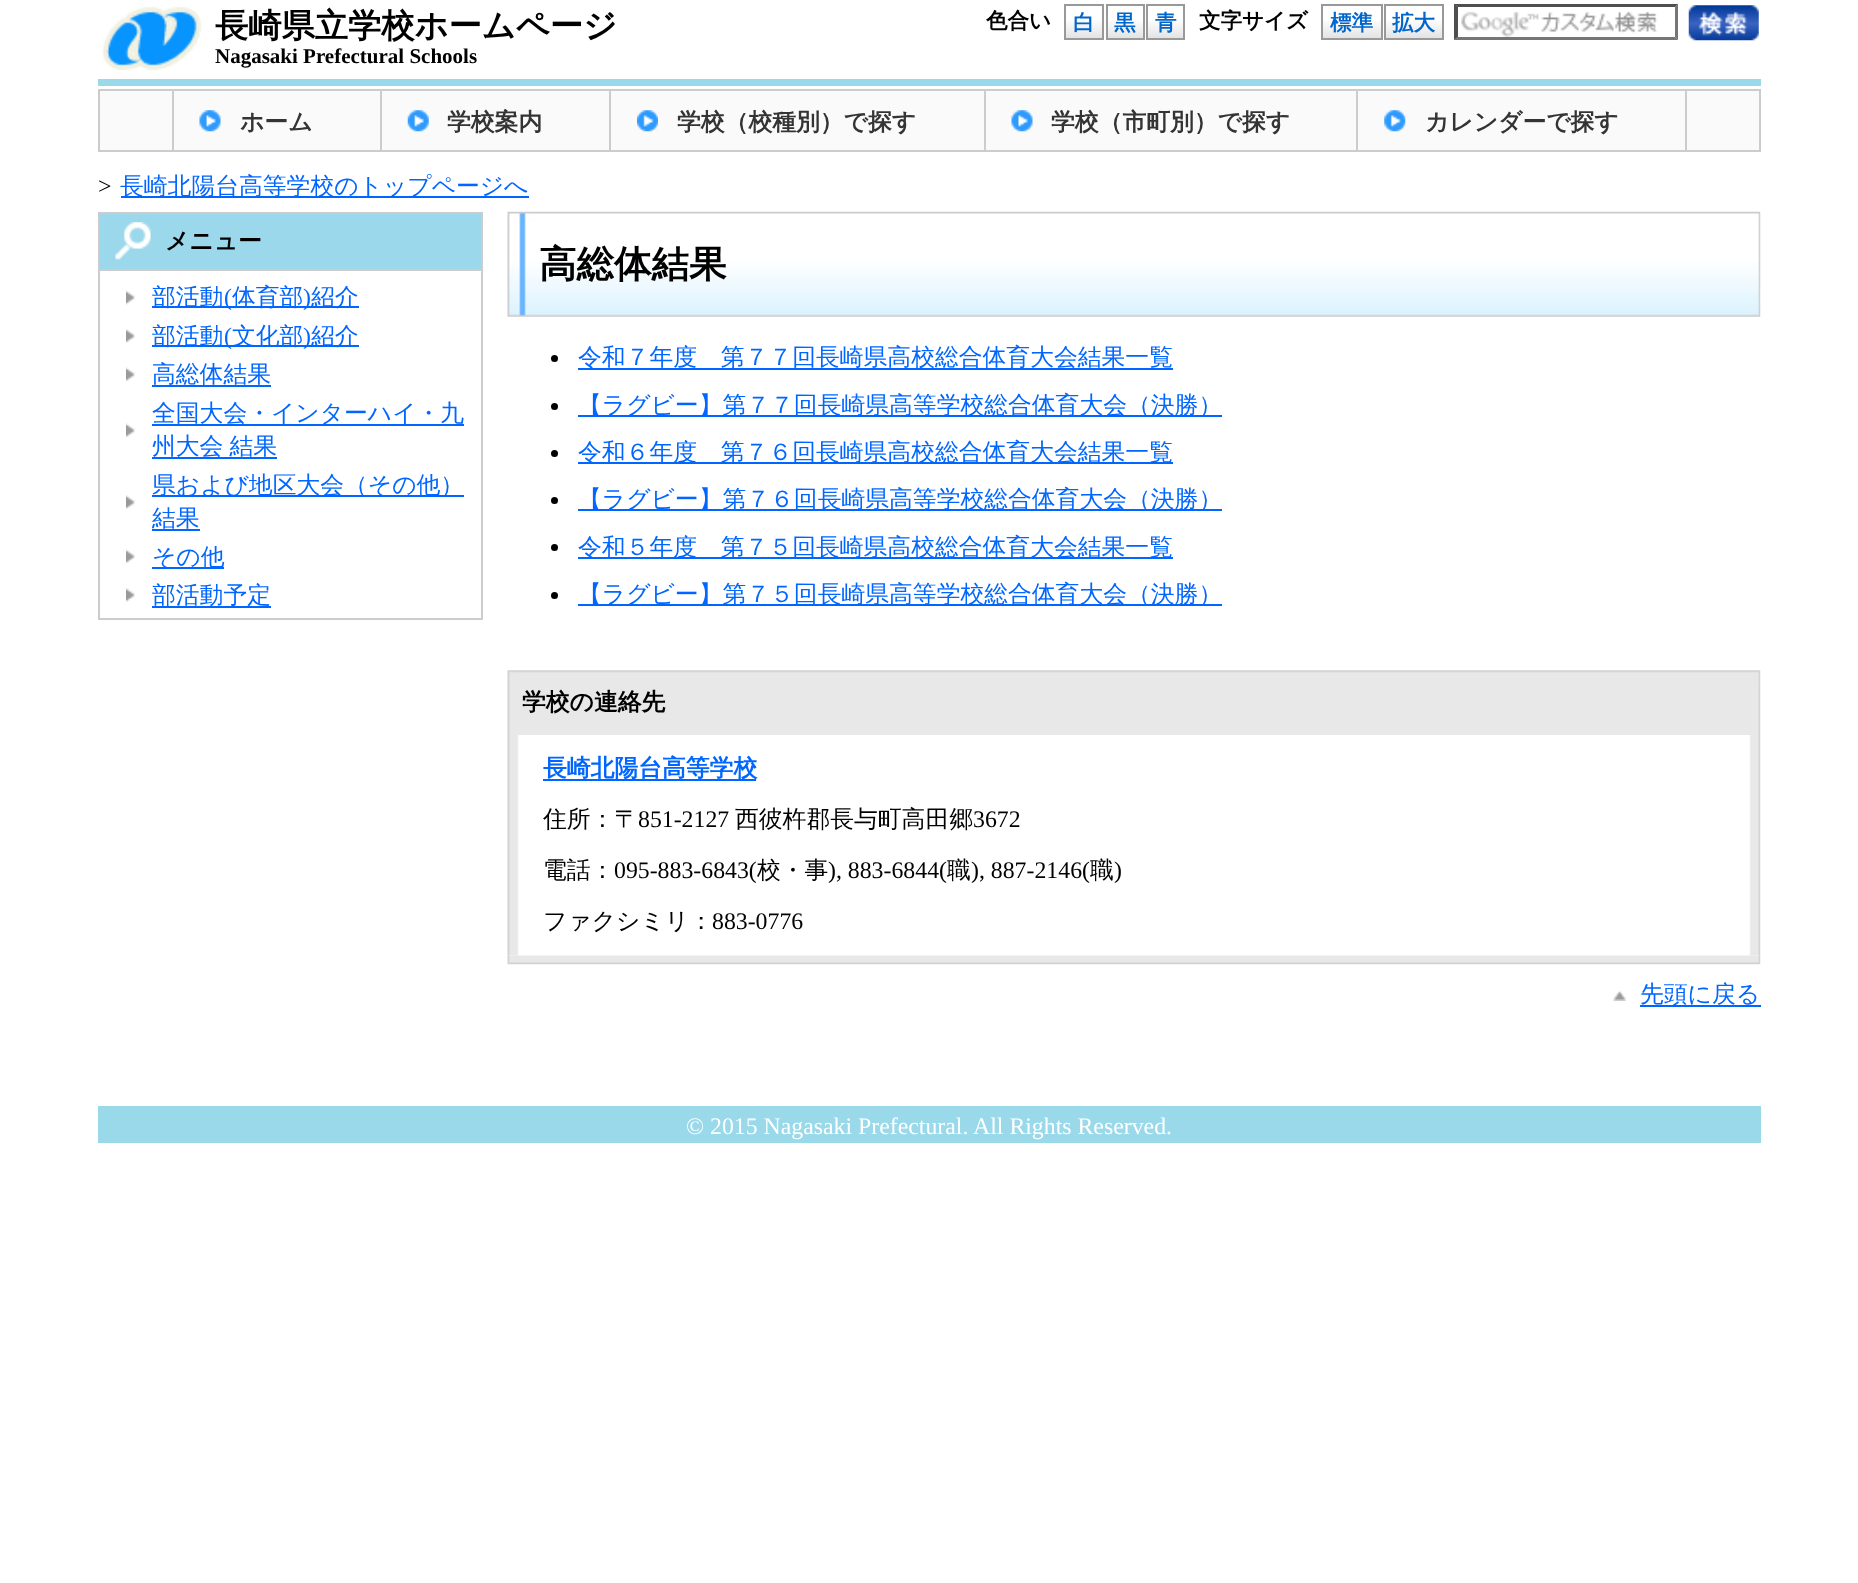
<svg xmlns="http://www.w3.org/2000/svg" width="1858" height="1583">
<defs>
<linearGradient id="g1" gradientUnits="userSpaceOnUse" x1="1084" y1="5.2" x2="1084" y2="39"><stop offset="0.4" stop-color="#fff"/><stop offset="1" stop-color="#e2e2e2"/></linearGradient>
<linearGradient id="g2" gradientUnits="userSpaceOnUse" x1="1125" y1="5.2" x2="1125" y2="39"><stop offset="0.4" stop-color="#fff"/><stop offset="1" stop-color="#e2e2e2"/></linearGradient>
<linearGradient id="g3" gradientUnits="userSpaceOnUse" x1="1166" y1="5.2" x2="1166" y2="39"><stop offset="0.4" stop-color="#fff"/><stop offset="1" stop-color="#e2e2e2"/></linearGradient>
<linearGradient id="g4" gradientUnits="userSpaceOnUse" x1="1352" y1="5.2" x2="1352" y2="39"><stop offset="0.4" stop-color="#fff"/><stop offset="1" stop-color="#e2e2e2"/></linearGradient>
<linearGradient id="g5" gradientUnits="userSpaceOnUse" x1="1414" y1="5.2" x2="1414" y2="39"><stop offset="0.4" stop-color="#fff"/><stop offset="1" stop-color="#e2e2e2"/></linearGradient>
</defs>
<rect width="100%" height="100%" fill="#fff"/>
<rect x="98" y="79" width="1663" height="7" fill="#99d9ea"/>
<image x="102" y="6" width="100" height="65" href="media/1.png"/>
<text x="215" y="37" style="font-family:WenQuanYi Zen Hei;font-size:33.25px;font-weight:bold;fill:#000">長崎県立学校ホームページ</text>
<text x="215" y="63" style="font-family:Liberation Serif;font-size:21px;font-weight:bold;fill:#000">Nagasaki Prefectural Schools</text>
<text x="986" y="28" style="font-family:WenQuanYi Zen Hei;font-size:21.5px;font-weight:bold;fill:#000">色合い</text>
<rect x="1066" y="20" width="36" height="18" fill="url(#g1)"/>
<rect x="1065" y="5" width="38" height="34" fill="none" stroke="#999" stroke-width="2"/>
<text x="1073" y="30" style="font-family:WenQuanYi Zen Hei;font-size:21.5px;font-weight:bold;fill:#0066cb">白</text>
<rect x="1108" y="20" width="35" height="18" fill="url(#g2)"/>
<rect x="1107" y="5" width="37" height="34" fill="none" stroke="#999" stroke-width="2"/>
<text x="1114" y="30" style="font-family:WenQuanYi Zen Hei;font-size:21.5px;font-weight:bold;fill:#0066cb">黒</text>
<rect x="1148" y="20" width="35" height="18" fill="url(#g3)"/>
<rect x="1147" y="5" width="37" height="34" fill="none" stroke="#999" stroke-width="2"/>
<text x="1155" y="30" style="font-family:WenQuanYi Zen Hei;font-size:21.5px;font-weight:bold;fill:#0066cb">青</text>
<text x="1199" y="28" style="font-family:WenQuanYi Zen Hei;font-size:21.5px;font-weight:bold;fill:#000">文字サイズ</text>
<rect x="1323" y="20" width="58" height="18" fill="url(#g4)"/>
<rect x="1322" y="5" width="60" height="34" fill="none" stroke="#999" stroke-width="2"/>
<text x="1330" y="30" style="font-family:WenQuanYi Zen Hei;font-size:21.5px;font-weight:bold;fill:#0066cb">標準</text>
<rect x="1386" y="20" width="56" height="18" fill="url(#g5)"/>
<rect x="1385" y="5" width="58" height="34" fill="none" stroke="#999" stroke-width="2"/>
<text x="1392" y="30" style="font-family:WenQuanYi Zen Hei;font-size:21.5px;font-weight:bold;fill:#0066cb">拡大</text>
<image x="1461" y="11" width="197" height="26" href="media/2.png"/>
<path d="M1454 4h224l-3 3h-217z" fill="#4f4f4f"/>
<path d="M1678 3.5v36.5l-3-3v-30z" fill="#767676"/>
<path d="M1678 40h-224l4-3h217z" fill="#767676"/>
<path d="M1454 40v-36.5l4 3.5v30z" fill="#4f4f4f"/>
<image x="1688" y="5" width="71" height="36" href="media/3.png"/>
<rect x="99" y="90" width="1661" height="61" fill="#fafafa" stroke="#ccc" stroke-width="2"/>
<image x="199" y="110" width="22" height="22" href="media/4.png"/>
<rect x="380" y="91" width="2" height="60" fill="#ccc"/>
<rect x="172" y="91" width="2" height="60" fill="#ccc"/>
<text x="240" y="130" style="font-family:WenQuanYi Zen Hei;font-size:23.8px;font-weight:bold;fill:#343434">ホーム</text>
<image x="407" y="110" width="22" height="22" href="media/5.png"/>
<rect x="609" y="91" width="2" height="60" fill="#ccc"/>
<text x="447" y="130" style="font-family:WenQuanYi Zen Hei;font-size:23.8px;font-weight:bold;fill:#343434">学校案内</text>
<image x="637" y="110" width="21" height="22" href="media/6.png"/>
<rect x="984" y="91" width="2" height="60" fill="#ccc"/>
<text x="677" y="130" style="font-family:WenQuanYi Zen Hei;font-size:23.8px;font-weight:bold;fill:#343434">学校（校種別）で探す</text>
<image x="1011" y="110" width="22" height="22" href="media/7.png"/>
<rect x="1356" y="91" width="2" height="60" fill="#ccc"/>
<text x="1051" y="130" style="font-family:WenQuanYi Zen Hei;font-size:23.8px;font-weight:bold;fill:#343434">学校（市町別）で探す</text>
<image x="1384" y="110" width="22" height="22" href="media/8.png"/>
<rect x="1685" y="91" width="2" height="60" fill="#ccc"/>
<text x="1425" y="130" style="font-family:WenQuanYi Zen Hei;font-size:23.8px;font-weight:bold;fill:#343434">カレンダーで探す</text>
<text x="98" y="194" style="font-family:Liberation Serif;font-size:23.8px;fill:#000">&gt;</text>
<rect x="121" y="196" width="408" height="2" fill="#06f"/>
<text x="120" y="194" style="font-family:WenQuanYi Zen Hei;font-size:23.8px;font-weight:500;fill:#06f">長崎北陽台高等学校のトップページへ</text>
<rect x="99" y="213" width="383" height="57" fill="#9bd8eb" stroke="#ccc" stroke-width="2"/>
<image x="115" y="222" width="36" height="38" href="media/9.png"/>
<text x="165" y="249" style="font-family:WenQuanYi Zen Hei;font-size:23.8px;font-weight:bold;fill:#000">メニュー</text>
<rect x="481" y="271" width="2" height="349" fill="#ccc"/>
<rect x="98" y="618" width="385" height="2" fill="#ccc"/>
<rect x="98" y="271" width="2" height="349" fill="#ccc"/>
<image x="126" y="290" width="9" height="15" href="media/10.png"/>
<rect x="152" y="306" width="207" height="2" fill="#06f"/>
<text x="152" y="305" style="font-family:WenQuanYi Zen Hei;font-size:23.8px;font-weight:500;fill:#06f">部活動</text>
<text x="224" y="305" style="font-family:Liberation Serif;font-size:23.8px;fill:#06f">(</text>
<text x="232" y="305" style="font-family:WenQuanYi Zen Hei;font-size:23.8px;font-weight:500;fill:#06f">体育部</text>
<text x="303" y="305" style="font-family:Liberation Serif;font-size:23.8px;fill:#06f">)</text>
<text x="311" y="305" style="font-family:WenQuanYi Zen Hei;font-size:23.8px;font-weight:500;fill:#06f">紹介</text>
<image x="126" y="329" width="9" height="14" href="media/11.png"/>
<rect x="152" y="345" width="207" height="2" fill="#06f"/>
<text x="152" y="344" style="font-family:WenQuanYi Zen Hei;font-size:23.8px;font-weight:500;fill:#06f">部活動</text>
<text x="224" y="344" style="font-family:Liberation Serif;font-size:23.8px;fill:#06f">(</text>
<text x="232" y="344" style="font-family:WenQuanYi Zen Hei;font-size:23.8px;font-weight:500;fill:#06f">文化部</text>
<text x="303" y="344" style="font-family:Liberation Serif;font-size:23.8px;fill:#06f">)</text>
<text x="311" y="344" style="font-family:WenQuanYi Zen Hei;font-size:23.8px;font-weight:500;fill:#06f">紹介</text>
<image x="126" y="367" width="9" height="15" href="media/10.png"/>
<rect x="152" y="385" width="119" height="2" fill="#06f"/>
<text x="152" y="382" style="font-family:WenQuanYi Zen Hei;font-size:23.8px;font-weight:500;fill:#06f">高総体結果</text>
<image x="126" y="423" width="9" height="15" href="media/10.png"/>
<rect x="152" y="424" width="312" height="2" fill="#06f"/>
<text x="152" y="421" style="font-family:WenQuanYi Zen Hei;font-size:23.8px;font-weight:500;fill:#06f">全国大会・インターハイ・九</text>
<rect x="152" y="457" width="125" height="2" fill="#06f"/>
<text x="152" y="454" word-spacing="-1" style="font-family:WenQuanYi Zen Hei;font-size:23.8px;font-weight:500;fill:#06f">州大会 結果</text>
<image x="126" y="495" width="9" height="15" href="media/12.png"/>
<rect x="152" y="495" width="312" height="2" fill="#06f"/>
<text x="152" y="493" style="font-family:WenQuanYi Zen Hei;font-size:23.8px;font-weight:500;fill:#06f">県および地区大会（その他）</text>
<text x="152" y="526" style="font-family:WenQuanYi Zen Hei;font-size:23.8px;font-weight:500;fill:#06f">結果</text>
<rect x="152" y="529" width="48" height="2" fill="#06f"/>
<image x="126" y="549" width="9" height="15" href="media/10.png"/>
<rect x="152" y="567" width="72" height="2" fill="#06f"/>
<text x="152" y="565" style="font-family:WenQuanYi Zen Hei;font-size:23.8px;font-weight:500;fill:#06f">その他</text>
<image x="126" y="588" width="9" height="14" href="media/11.png"/>
<rect x="152" y="606" width="119" height="2" fill="#06f"/>
<text x="152" y="603" style="font-family:WenQuanYi Zen Hei;font-size:23.8px;font-weight:500;fill:#06f">部活動予定</text>
<image x="507" y="211" width="1254" height="106" href="media/13.png"/>
<text x="539" y="277" style="font-family:WenQuanYi Zen Hei;font-size:37.5px;font-weight:bold;fill:#000">高総体結果</text>
<circle cx="554.5" cy="358.5" r="3.5" fill="#000"/>
<rect x="578" y="368" width="595" height="2" fill="#06f"/>
<text x="578" y="365" style="font-family:WenQuanYi Zen Hei;font-size:23.8px;font-weight:500;fill:#06f">令和７年度　第７７回長崎県高校総合体育大会結果一覧</text>
<circle cx="554.5" cy="406.5" r="3.5" fill="#000"/>
<rect x="578" y="415" width="644" height="2" fill="#06f"/>
<text x="578" y="413" style="font-family:WenQuanYi Zen Hei;font-size:23.8px;font-weight:500;fill:#06f">【ラグビー】第７７回長崎県高等学校総合体育大会（決勝）</text>
<circle cx="554.5" cy="453.5" r="3.5" fill="#000"/>
<rect x="578" y="462" width="595" height="2" fill="#06f"/>
<text x="578" y="460" style="font-family:WenQuanYi Zen Hei;font-size:23.8px;font-weight:500;fill:#06f">令和６年度　第７６回長崎県高校総合体育大会結果一覧</text>
<circle cx="554.5" cy="500.5" r="3.5" fill="#000"/>
<rect x="578" y="509" width="644" height="2" fill="#06f"/>
<text x="578" y="507" style="font-family:WenQuanYi Zen Hei;font-size:23.8px;font-weight:500;fill:#06f">【ラグビー】第７６回長崎県高等学校総合体育大会（決勝）</text>
<circle cx="554.5" cy="547.5" r="3.5" fill="#000"/>
<rect x="578" y="557" width="595" height="2" fill="#06f"/>
<text x="578" y="555" style="font-family:WenQuanYi Zen Hei;font-size:23.8px;font-weight:500;fill:#06f">令和５年度　第７５回長崎県高校総合体育大会結果一覧</text>
<circle cx="554.5" cy="595.5" r="3.5" fill="#000"/>
<rect x="578" y="604" width="644" height="2" fill="#06f"/>
<text x="578" y="602" style="font-family:WenQuanYi Zen Hei;font-size:23.8px;font-weight:500;fill:#06f">【ラグビー】第７５回長崎県高等学校総合体育大会（決勝）</text>
<image x="507" y="670" width="1254" height="65" href="media/14.png"/>
<text x="522" y="710" style="font-family:WenQuanYi Zen Hei;font-size:23.8px;font-weight:bold;fill:#000">学校の連絡先</text>
<image x="507" y="735" width="1254" height="221" href="media/15.png"/>
<rect x="543" y="779" width="213" height="2" fill="#06f"/>
<text x="543" y="776" style="font-family:WenQuanYi Zen Hei;font-size:23.8px;font-weight:bold;fill:#06f">長崎北陽台高等学校</text>
<text x="543" y="827" style="font-family:WenQuanYi Zen Hei;font-size:23.8px;font-weight:500;fill:#000">住所：〒</text>
<text x="638" y="827" style="font-family:Liberation Serif;font-size:23.8px;fill:#000">851-2127</text>
<text x="735" y="827" style="font-family:WenQuanYi Zen Hei;font-size:23.8px;font-weight:500;fill:#000">西彼杵郡長与町高田郷</text>
<text x="973" y="827" style="font-family:Liberation Serif;font-size:23.8px;fill:#000">3672</text>
<text x="543" y="878" style="font-family:WenQuanYi Zen Hei;font-size:23.8px;font-weight:500;fill:#000">電話：</text>
<text x="614" y="878" style="font-family:Liberation Serif;font-size:23.8px;fill:#000">095-883-6843(</text>
<text x="757" y="878" style="font-family:WenQuanYi Zen Hei;font-size:23.8px;font-weight:500;fill:#000">校・事</text>
<text x="828" y="878" style="font-family:Liberation Serif;font-size:23.8px;fill:#000">), 883-6844(</text>
<text x="947" y="878" style="font-family:WenQuanYi Zen Hei;font-size:23.8px;font-weight:500;fill:#000">職</text>
<text x="971" y="878" style="font-family:Liberation Serif;font-size:23.8px;fill:#000">), 887-2146(</text>
<text x="1090" y="878" style="font-family:WenQuanYi Zen Hei;font-size:23.8px;font-weight:500;fill:#000">職</text>
<text x="1114" y="878" style="font-family:Liberation Serif;font-size:23.8px;fill:#000">)</text>
<text x="543" y="929" style="font-family:WenQuanYi Zen Hei;font-size:23.8px;font-weight:500;fill:#000">ファクシミリ：</text>
<text x="712" y="929" style="font-family:Liberation Serif;font-size:23.8px;fill:#000">883-0776</text>
<image x="507" y="955" width="1254" height="10" href="media/16.png"/>
<image x="1613" y="990" width="13" height="11" href="media/17.png"/>
<rect x="1640" y="1005" width="121" height="2" fill="#06f"/>
<text x="1640" y="1002" style="font-family:WenQuanYi Zen Hei;font-size:23.8px;font-weight:500;fill:#06f">先頭に戻る</text>
<rect x="98" y="1106" width="1663" height="37" fill="#99d9ea"/>
<text x="686" y="1134" style="font-family:Liberation Serif;font-size:23.8px;fill:#fff">© 2015 Nagasaki Prefectural. All Rights Reserved.</text>
</svg>
